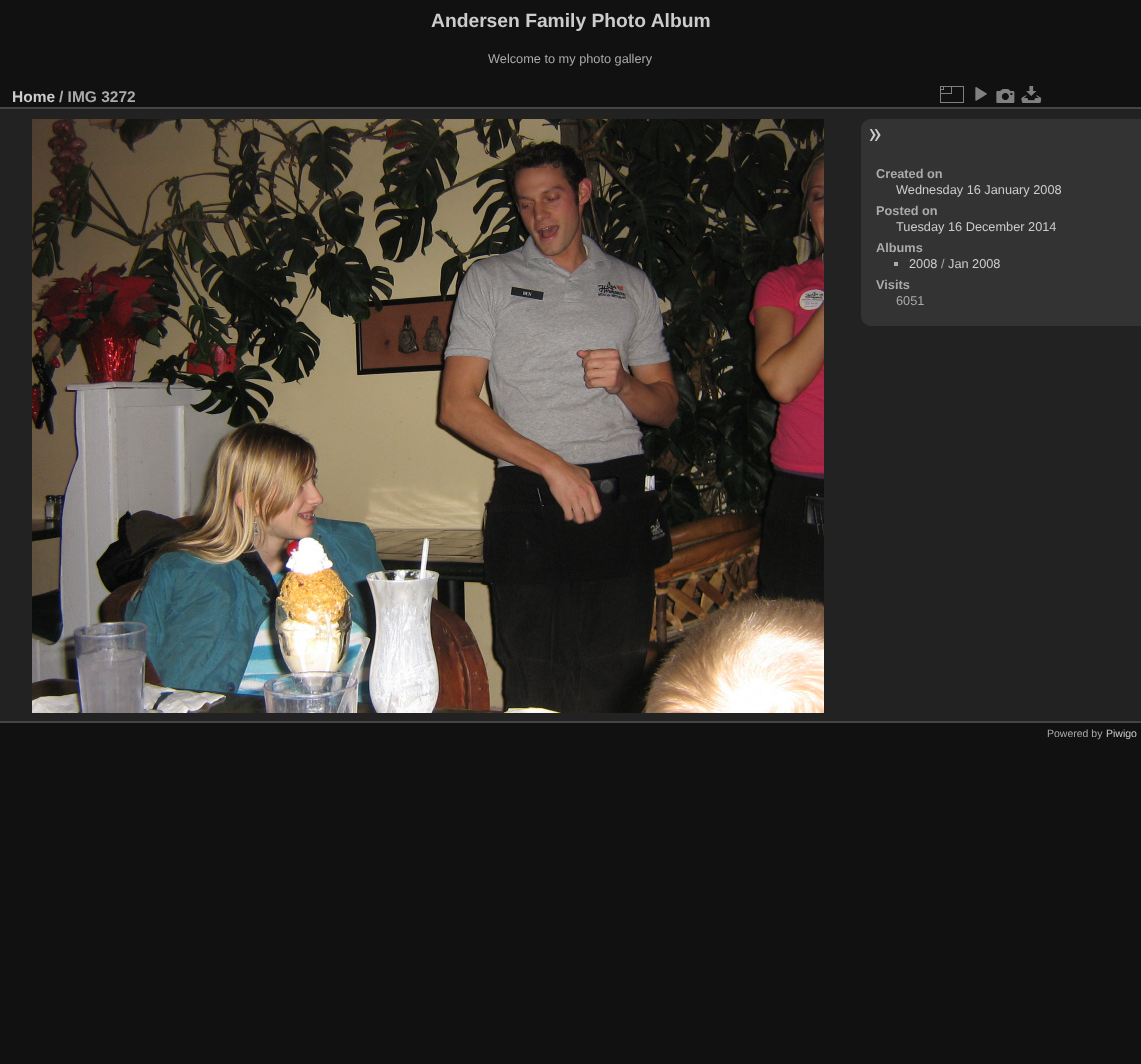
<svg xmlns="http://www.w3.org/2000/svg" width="1141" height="1064">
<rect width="100%" height="100%" fill="#111"/>
<text x="431" y="27" style="font-family:Liberation Sans;font-size:19.25px;font-weight:bold;fill:#ccc">Andersen Family Photo Album</text>
<text x="488" y="63" style="font-family:Liberation Sans;font-size:12.75px;fill:#aaa">Welcome to my photo gallery</text>
<rect y="109" width="1141" height="612" fill="#222"/>
<rect y="721" width="1141" height="2" fill="#444"/>
<rect y="107" width="1141" height="2" fill="#444"/>
<text x="12" y="102" style="font-family:Liberation Sans;font-size:15.5px;font-weight:bold;fill:#ccc">Home</text>
<text x="59" y="102" style="font-family:Liberation Sans;font-size:15.5px;font-weight:bold;fill:#aaa">/ IMG 3272</text>
<image x="940" y="86" width="24" height="17" href="media/1.png"/>
<image x="975" y="87" width="12" height="14" href="media/2.png"/>
<image x="996" y="89" width="19" height="14" href="media/3.png"/>
<image x="1021" y="86" width="21" height="17" href="media/4.png"/>
<image x="32" y="119" width="792" height="594" href="media/5.png"/>
<path d="M871 119h270v207h-270c-5.5 0-10-4.5-10-10v-187c0-5.5 4.5-10 10-10z" fill="#333"/>
<image x="869" y="129" width="12" height="12" href="media/6.png"/>
<text x="876" y="178" style="font-family:Liberation Sans;font-size:12.75px;font-weight:bold;fill:#aaa">Created on</text>
<text x="896" y="194" style="font-family:Liberation Sans;font-size:12.75px;fill:#ccc">Wednesday 16 January 2008</text>
<text x="876" y="215" style="font-family:Liberation Sans;font-size:12.75px;font-weight:bold;fill:#aaa">Posted on</text>
<text x="896" y="231" style="font-family:Liberation Sans;font-size:12.75px;fill:#ccc">Tuesday 16 December 2014</text>
<text x="876" y="252" style="font-family:Liberation Sans;font-size:12.75px;font-weight:bold;fill:#aaa">Albums</text>
<rect x="894" y="262" width="4" height="4" fill="#aaa"/>
<text x="909" y="268" style="font-family:Liberation Sans;font-size:12.75px;fill:#ccc">2008</text>
<text x="941" y="268" style="font-family:Liberation Sans;font-size:12.75px;fill:#aaa">/</text>
<text x="948" y="268" style="font-family:Liberation Sans;font-size:12.75px;fill:#ccc">Jan 2008</text>
<text x="876" y="289" style="font-family:Liberation Sans;font-size:12.75px;font-weight:bold;fill:#aaa">Visits</text>
<text x="896" y="305" style="font-family:Liberation Sans;font-size:12.75px;fill:#aaa">6051</text>
<text x="1047" y="737" style="font-family:Liberation Sans;font-size:10.5px;fill:#aaa">Powered by</text>
<text x="1106" y="737" style="font-family:Liberation Sans;font-size:10.5px;fill:#ccc">Piwigo</text>
</svg>
